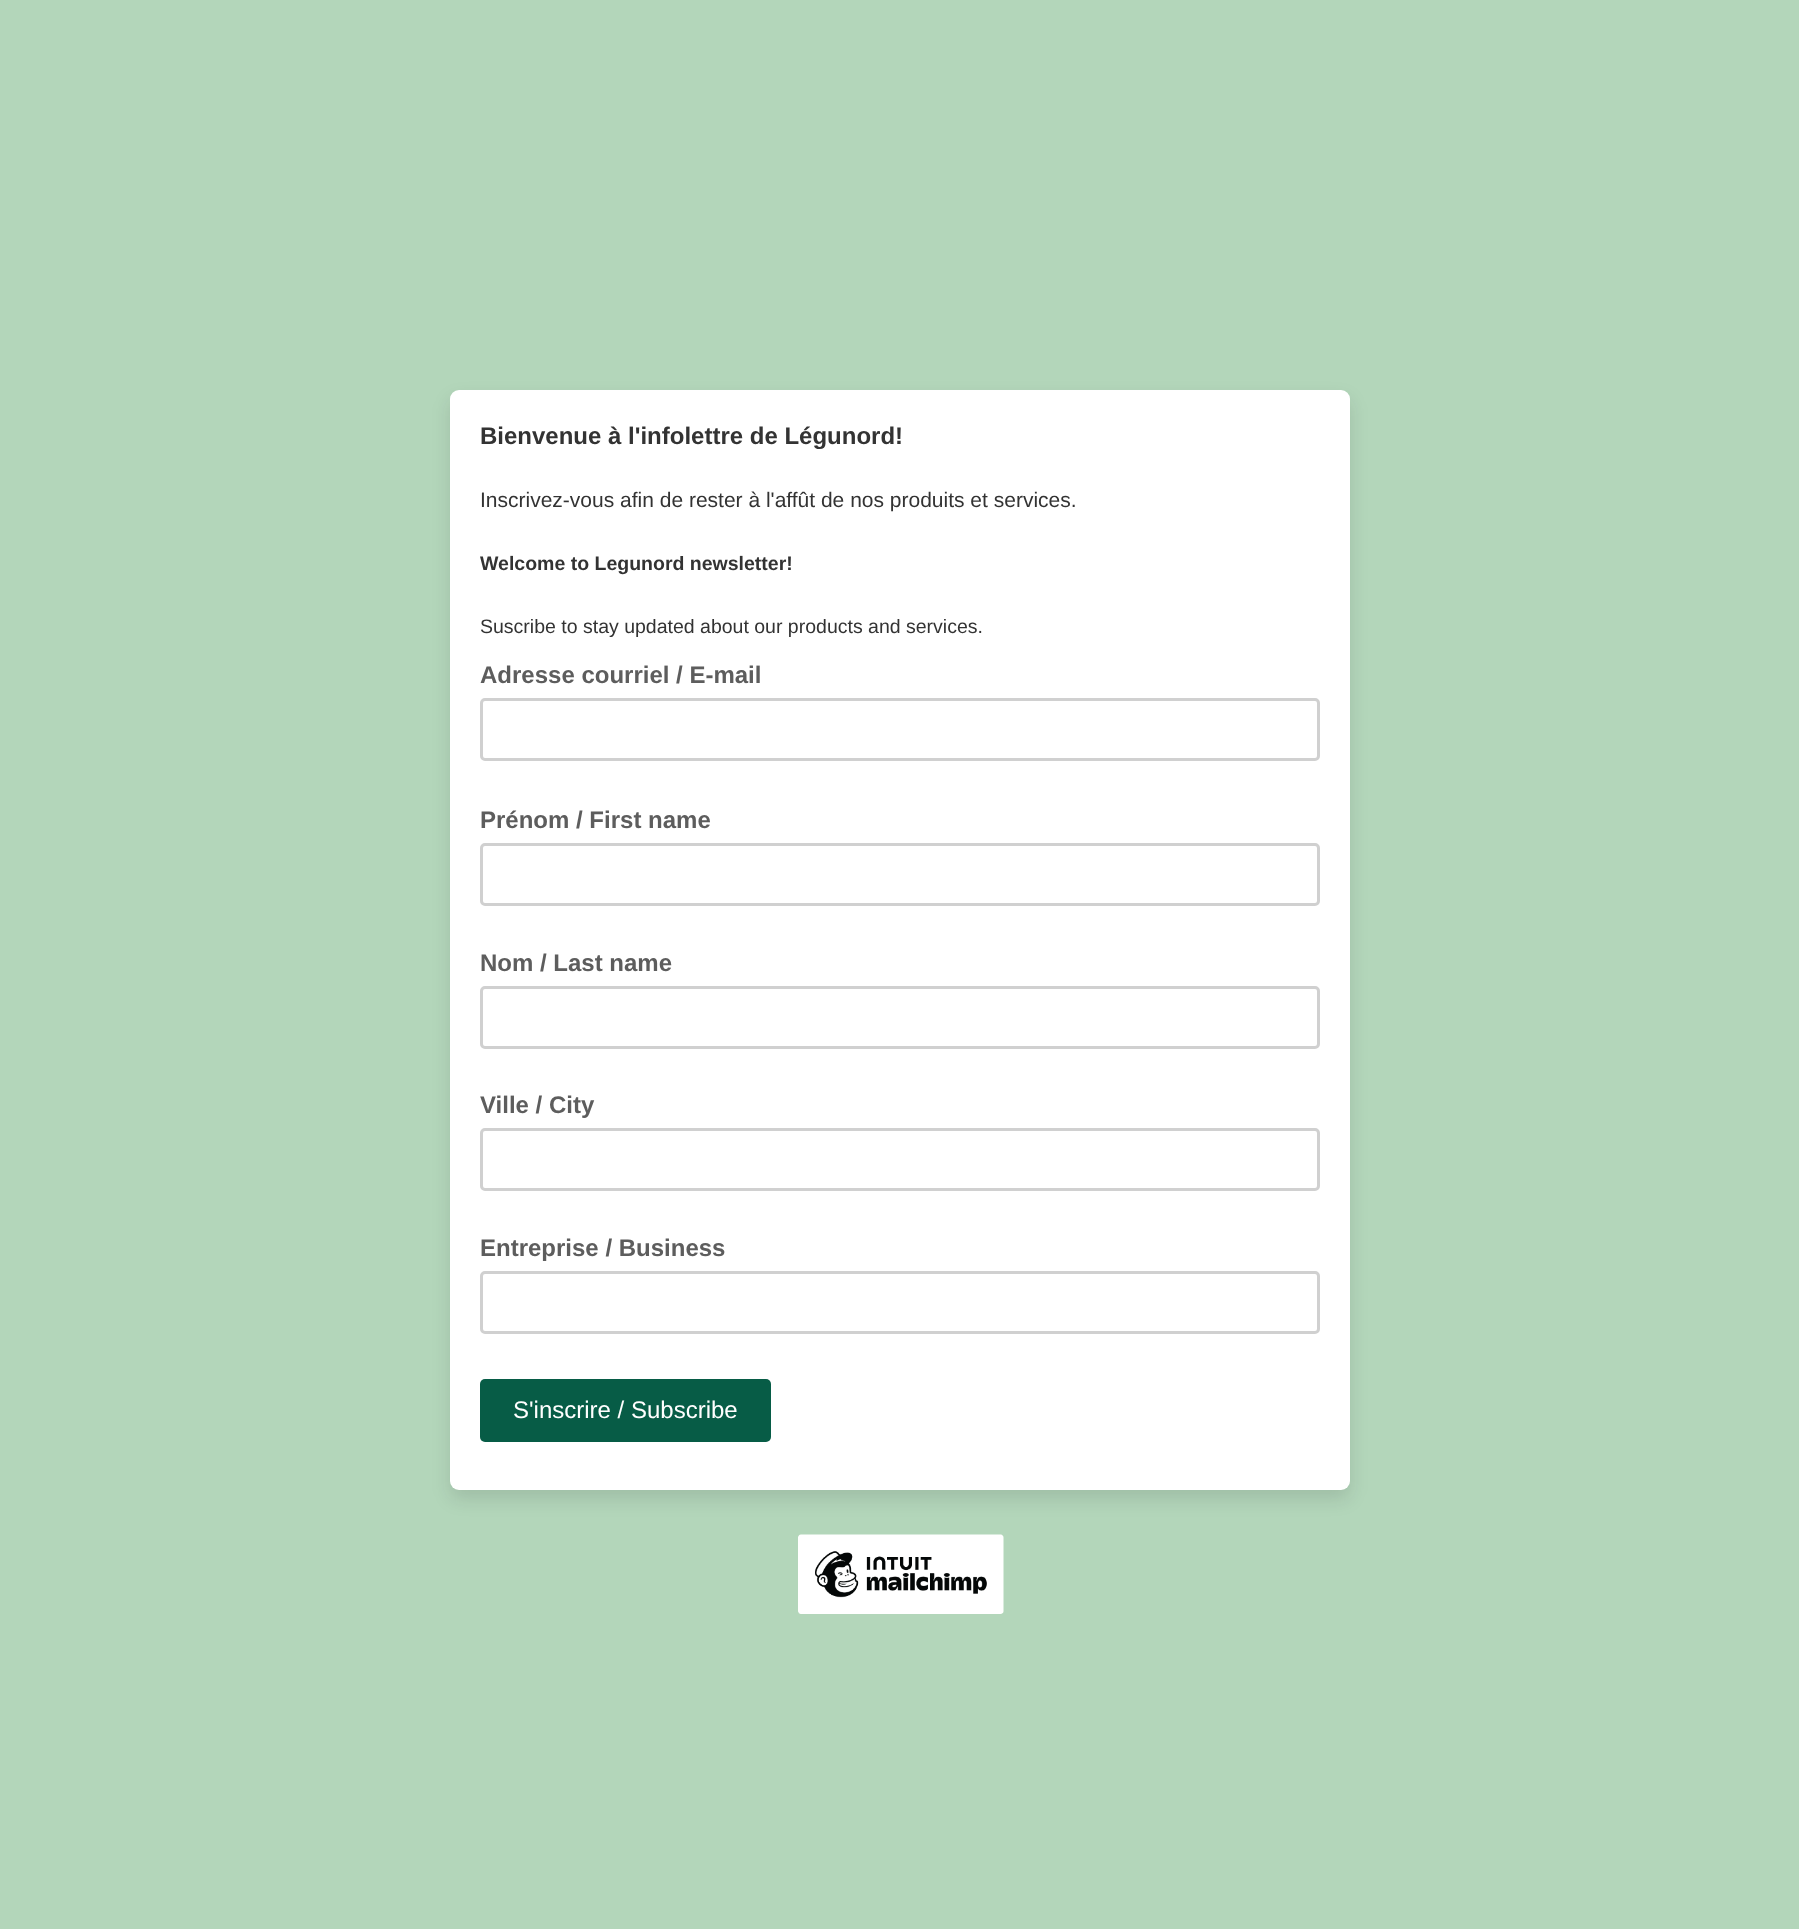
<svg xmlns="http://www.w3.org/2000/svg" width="1799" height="1929">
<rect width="100%" height="100%" fill="#b3d6ba"/>
<rect x="450" y="399" width="900" height="1100" rx="9" fill="#0d12161f" filter="blur(9px)"/>
<rect x="450" y="390" width="900" height="1100" rx="9" fill="#fff"/>
<text x="480" y="444" style="font-family:Liberation Sans;font-size:24px;font-weight:bold;fill:#333">Bienvenue à l'infolettre de Légunord!</text>
<text x="480" y="507" style="font-family:Liberation Sans;font-size:21px;fill:#333">Inscrivez-vous afin de rester à l'affût de nos produits et services.</text>
<text x="480" y="570" style="font-family:Liberation Sans;font-size:19.5px;font-weight:bold;fill:#333">Welcome to Legunord newsletter!</text>
<text x="480" y="633" style="font-family:Liberation Sans;font-size:19.5px;fill:#333">Suscribe to stay updated about our products and services.</text>
<text x="480" y="683" style="font-family:Liberation Sans;font-size:24px;font-weight:bold;fill:#5d5d5d">Adresse courriel / E-mail</text>
<rect x="481.5" y="699.5" width="837" height="60" rx="3.5" fill="none" stroke="#d0d0d0" stroke-width="3"/>
<text x="480" y="828" style="font-family:Liberation Sans;font-size:24px;font-weight:bold;fill:#5d5d5d">Prénom / First name</text>
<rect x="481.5" y="844.5" width="837" height="60" rx="3.5" fill="none" stroke="#d0d0d0" stroke-width="3"/>
<text x="480" y="971" style="font-family:Liberation Sans;font-size:24px;font-weight:bold;fill:#5d5d5d">Nom / Last name</text>
<rect x="481.5" y="987.5" width="837" height="60" rx="3.5" fill="none" stroke="#d0d0d0" stroke-width="3"/>
<text x="480" y="1113" style="font-family:Liberation Sans;font-size:24px;font-weight:bold;fill:#5d5d5d">Ville / City</text>
<rect x="481.5" y="1129.5" width="837" height="60" rx="3.5" fill="none" stroke="#d0d0d0" stroke-width="3"/>
<text x="480" y="1256" style="font-family:Liberation Sans;font-size:24px;font-weight:bold;fill:#5d5d5d">Entreprise / Business</text>
<rect x="481.5" y="1272.5" width="837" height="60" rx="3.5" fill="none" stroke="#d0d0d0" stroke-width="3"/>
<rect x="480" y="1379" width="291" height="63" rx="5" fill="#075c46"/>
<text x="513" y="1418" style="font-family:Liberation Sans;font-size:24px;fill:#fff">S'inscrire / Subscribe</text>
<image x="798" y="1534" width="206" height="80" href="media/1.png"/>
</svg>
